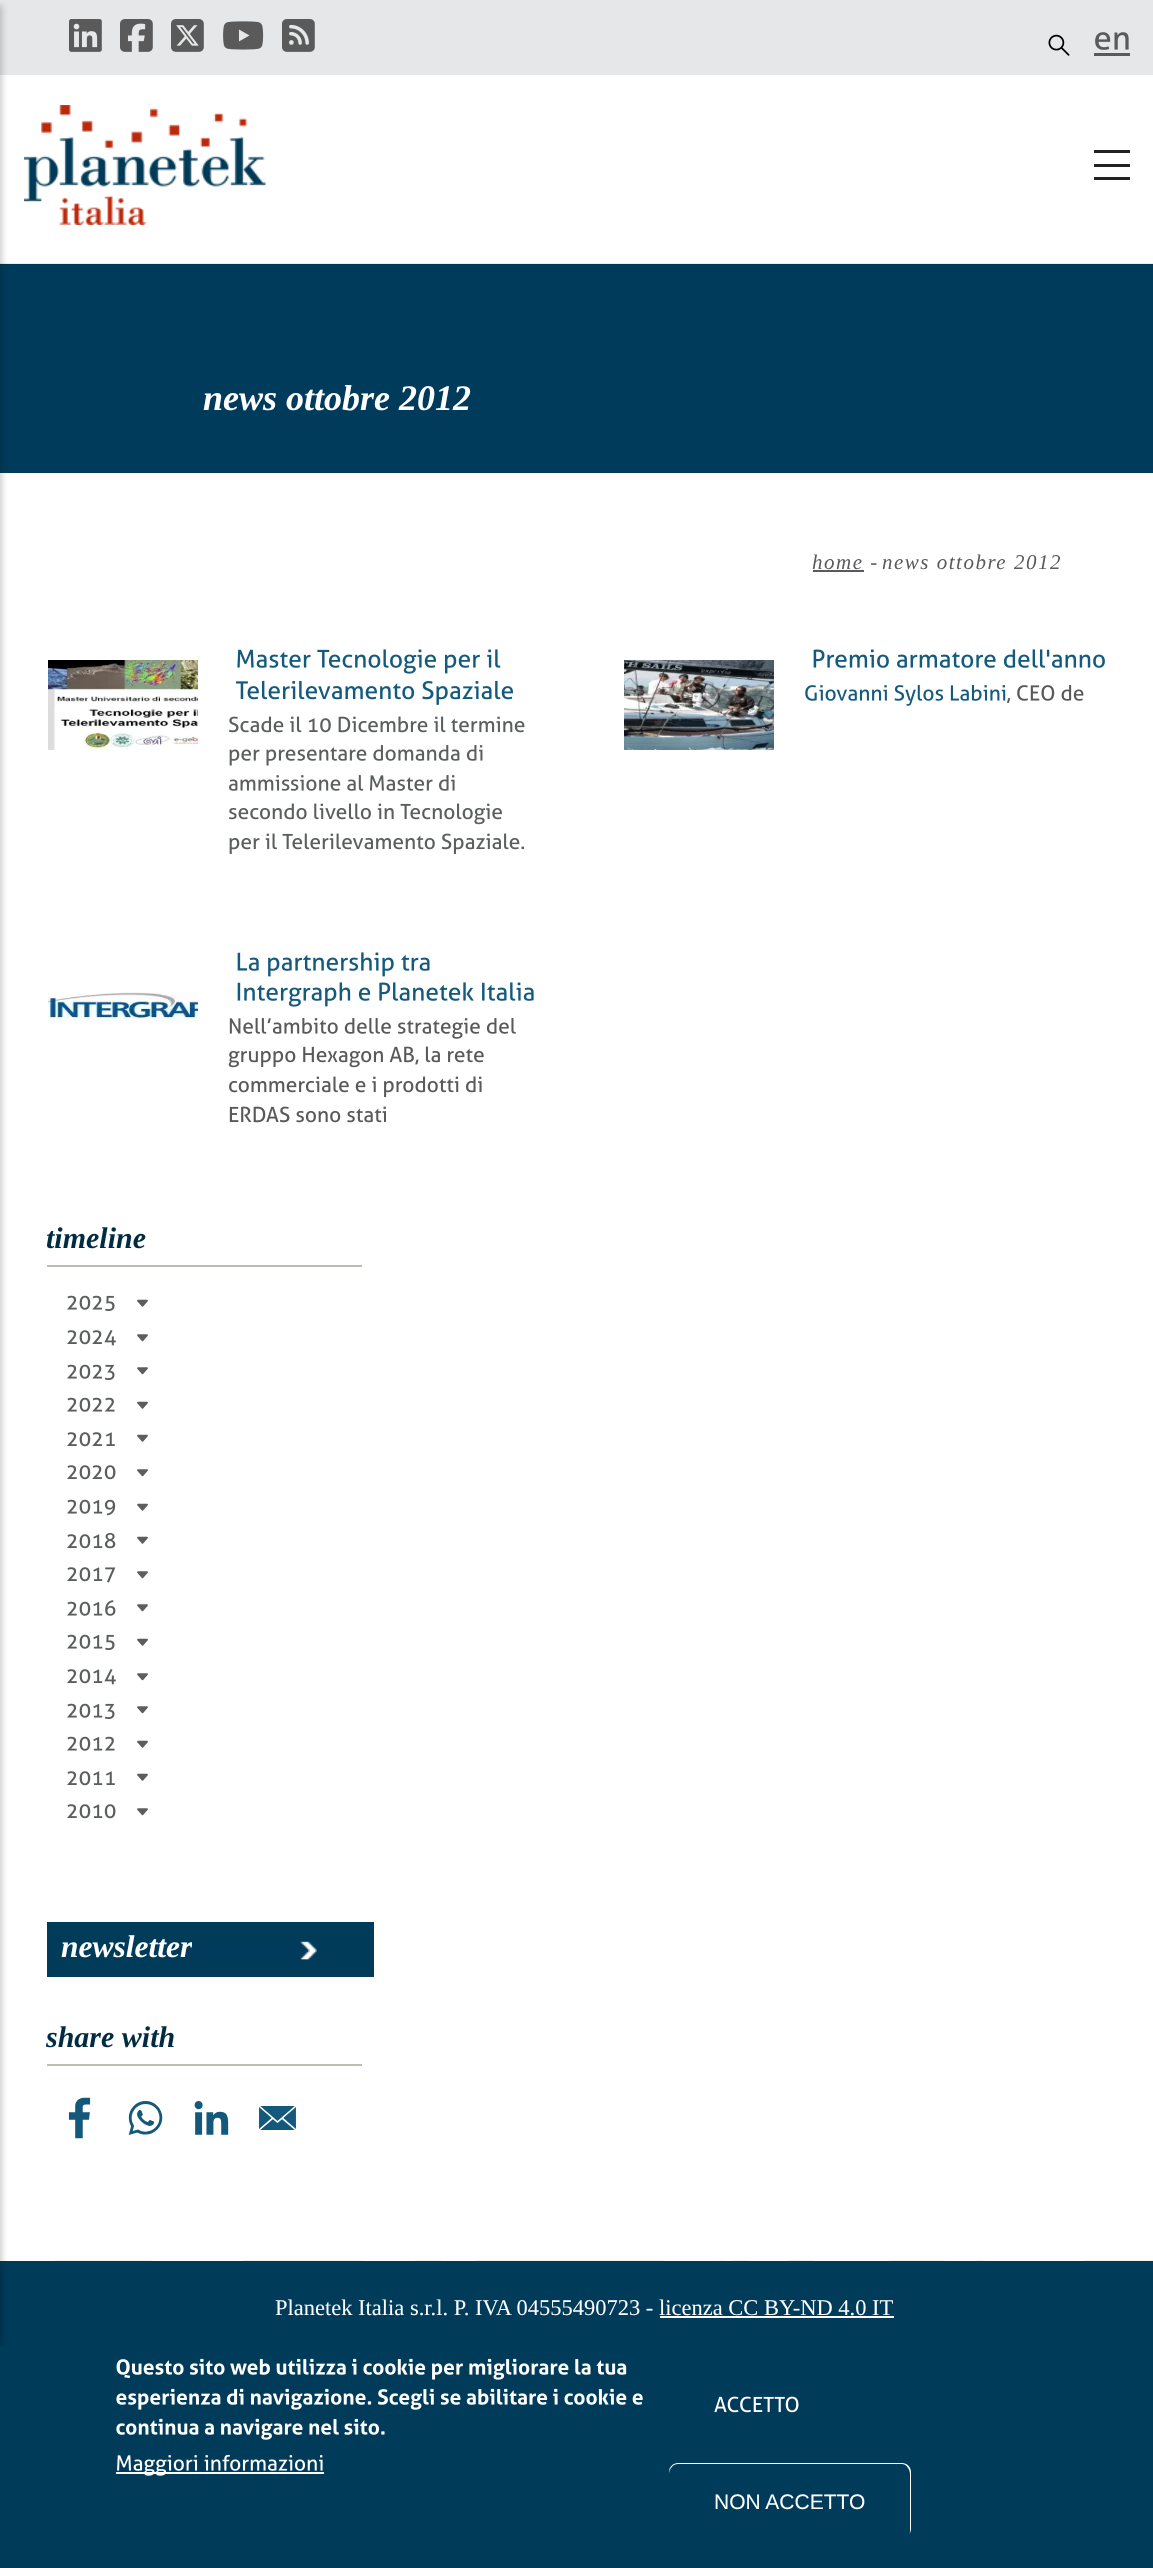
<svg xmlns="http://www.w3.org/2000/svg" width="1153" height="2568">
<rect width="100%" height="100%" fill="#fff"/>
<rect y="264" width="1153" height="209" fill="#003b5b"/>
<rect y="263" width="1153" height="2" fill="#00000014"/>
<rect width="1153" height="75" fill="#e6e7e8"/>
<image x="69" y="19" width="33" height="33" href="media/1.png"/>
<image x="120" y="19" width="33" height="33" href="media/2.png"/>
<image x="171" y="19" width="33" height="33" href="media/3.png"/>
<image x="223" y="21" width="41" height="29" href="media/4.png"/>
<image x="282" y="19" width="33" height="33" href="media/5.png"/>
<image x="1095" y="32" width="34" height="18" href="media/6.png"/>
<rect x="1094" y="53" width="36" height="3" fill="#5a5a5a"/>
<rect y="2261" width="1153" height="85" fill="#003b5a"/>
<rect x="-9" y="5" width="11" height="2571" fill="#00000033" filter="blur(3px)"/>
<image x="1048" y="34" width="22" height="22" href="media/7.png"/>
<rect x="1094" y="150" width="36" height="3" fill="#222"/>
<rect x="1094" y="164" width="36" height="3" fill="#222"/>
<rect x="1094" y="177" width="36" height="3" fill="#222"/>
<image x="24" y="105" width="242" height="120" href="media/8.png"/>
<text x="203" y="410" style="font-family:Liberation Serif;font-size:36px;font-weight:bold;font-style:italic;fill:#fff">news ottobre 2012</text>
<text x="812" y="569" style="font-family:Liberation Serif;font-size:21px;font-style:italic;letter-spacing:1.5px;fill:#5a5a5c">home -</text>
<rect x="813" y="570" width="51" height="2" fill="#5a5a5c"/>
<text x="882" y="569" style="font-family:Liberation Serif;font-size:21px;font-style:italic;letter-spacing:1.5px;fill:#5a5a5c">news ottobre 2012</text>
<image x="48" y="660" width="150" height="90" href="media/9.png"/>
<image x="237" y="649" width="264" height="25" href="media/10.png"/>
<image x="236" y="680" width="277" height="25" href="media/11.png"/>
<image x="229" y="716" width="296" height="17" href="media/12.png"/>
<image x="229" y="745" width="254" height="21" href="media/13.png"/>
<image x="229" y="775" width="226" height="16" href="media/14.png"/>
<image x="229" y="803" width="273" height="22" href="media/15.png"/>
<image x="229" y="833" width="296" height="21" href="media/16.png"/>
<image x="624" y="660" width="150" height="90" href="media/17.png"/>
<image x="813" y="649" width="292" height="19" href="media/18.png"/>
<image x="805" y="685" width="201" height="21" href="media/19.png"/>
<image x="1007" y="685" width="77" height="18" href="media/20.png"/>
<image x="48" y="992" width="150" height="30" href="media/21.png"/>
<image x="237" y="952" width="193" height="25" href="media/22.png"/>
<image x="237" y="982" width="297" height="25" href="media/23.png"/>
<image x="229" y="1018" width="287" height="21" href="media/24.png"/>
<image x="228" y="1046" width="256" height="22" href="media/25.png"/>
<image x="229" y="1076" width="253" height="21" href="media/26.png"/>
<image x="229" y="1106" width="157" height="17" href="media/27.png"/>
<rect x="47" y="1265" width="315" height="2" fill="#bcbeb0"/>
<text x="46" y="1248" style="font-family:Liberation Serif;font-size:30px;font-weight:bold;font-style:italic;fill:#002c42">timeline</text>
<image x="67" y="1295" width="48" height="16" href="media/28.png"/>
<image x="137" y="1299" width="11" height="8" href="media/29.png"/>
<image x="67" y="1330" width="49" height="16" href="media/30.png"/>
<image x="137" y="1334" width="11" height="8" href="media/31.png"/>
<image x="67" y="1364" width="48" height="16" href="media/32.png"/>
<image x="137" y="1367" width="11" height="8" href="media/31.png"/>
<image x="67" y="1397" width="48" height="15" href="media/33.png"/>
<image x="137" y="1401" width="11" height="8" href="media/29.png"/>
<image x="67" y="1432" width="48" height="15" href="media/34.png"/>
<image x="137" y="1434" width="11" height="8" href="media/29.png"/>
<image x="67" y="1465" width="49" height="15" href="media/35.png"/>
<image x="137" y="1469" width="11" height="8" href="media/31.png"/>
<image x="67" y="1499" width="49" height="17" href="media/36.png"/>
<image x="137" y="1503" width="11" height="8" href="media/29.png"/>
<image x="67" y="1532" width="49" height="17" href="media/37.png"/>
<image x="137" y="1536" width="11" height="8" href="media/29.png"/>
<image x="67" y="1567" width="49" height="16" href="media/38.png"/>
<image x="137" y="1571" width="11" height="8" href="media/31.png"/>
<image x="67" y="1600" width="49" height="16" href="media/39.png"/>
<image x="137" y="1604" width="11" height="8" href="media/31.png"/>
<image x="67" y="1634" width="48" height="16" href="media/40.png"/>
<image x="137" y="1638" width="11" height="8" href="media/29.png"/>
<image x="67" y="1669" width="49" height="16" href="media/41.png"/>
<image x="137" y="1673" width="11" height="8" href="media/31.png"/>
<image x="67" y="1703" width="48" height="16" href="media/42.png"/>
<image x="137" y="1706" width="11" height="8" href="media/31.png"/>
<image x="67" y="1736" width="48" height="15" href="media/43.png"/>
<image x="137" y="1740" width="11" height="8" href="media/29.png"/>
<image x="67" y="1771" width="48" height="15" href="media/44.png"/>
<image x="137" y="1773" width="11" height="8" href="media/29.png"/>
<image x="67" y="1804" width="49" height="15" href="media/45.png"/>
<image x="137" y="1808" width="11" height="8" href="media/31.png"/>
<rect x="47" y="1922" width="327" height="55" fill="#003b5a"/>
<text x="61" y="1957" style="font-family:Liberation Serif;font-size:31.5px;font-weight:bold;font-style:italic;fill:#fff">newsletter</text>
<image x="192" y="1941" width="125" height="19" href="media/46.png"/>
<rect x="47" y="2064" width="315" height="2" fill="#bcbeb0"/>
<text x="46" y="2047" style="font-family:Liberation Serif;font-size:30px;font-weight:bold;font-style:italic;fill:#002c42">share with</text>
<image x="68" y="2097" width="23" height="42" href="media/47.png"/>
<image x="128" y="2101" width="35" height="34" href="media/48.png"/>
<image x="194" y="2101" width="35" height="34" href="media/49.png"/>
<image x="259" y="2106" width="37" height="24" href="media/50.png"/>
<image x="54" y="2260" width="1099" height="1" href="media/51.png"/>
<text x="275" y="2315" style="font-family:Liberation Serif;font-size:22.5px;fill:#fff">Planetek Italia s.r.l. P. IVA 04555490723 - licenza CC BY-ND 4.0 IT</text>
<rect x="660" y="2316" width="234" height="2" fill="#fff"/>
<rect y="2346" width="1153" height="222" fill="#003b5a"/>
<image x="116" y="2358" width="511" height="22" href="media/52.png"/>
<image x="116" y="2388" width="527" height="22" href="media/53.png"/>
<image x="116" y="2418" width="269" height="22" href="media/54.png"/>
<rect x="116" y="2472" width="208" height="2" fill="#fff"/>
<image x="117" y="2454" width="206" height="22" href="media/55.png"/>
<image x="714" y="2396" width="85" height="17" href="media/56.png"/>
<path d="M678 2464h224c4 0 8 5 8 10v56c0 2 0 3-1 5c1-2 2-4 2-6v-57c0-5-4-9-9-9h-224c-5 0-9 4-9 9v2c0-5 4-10 9-10z" fill="#fff"/>
<text x="714" y="2509" style="font-family:Liberation Sans;font-size:21px;fill:#fff">NON ACCETTO</text>
</svg>
